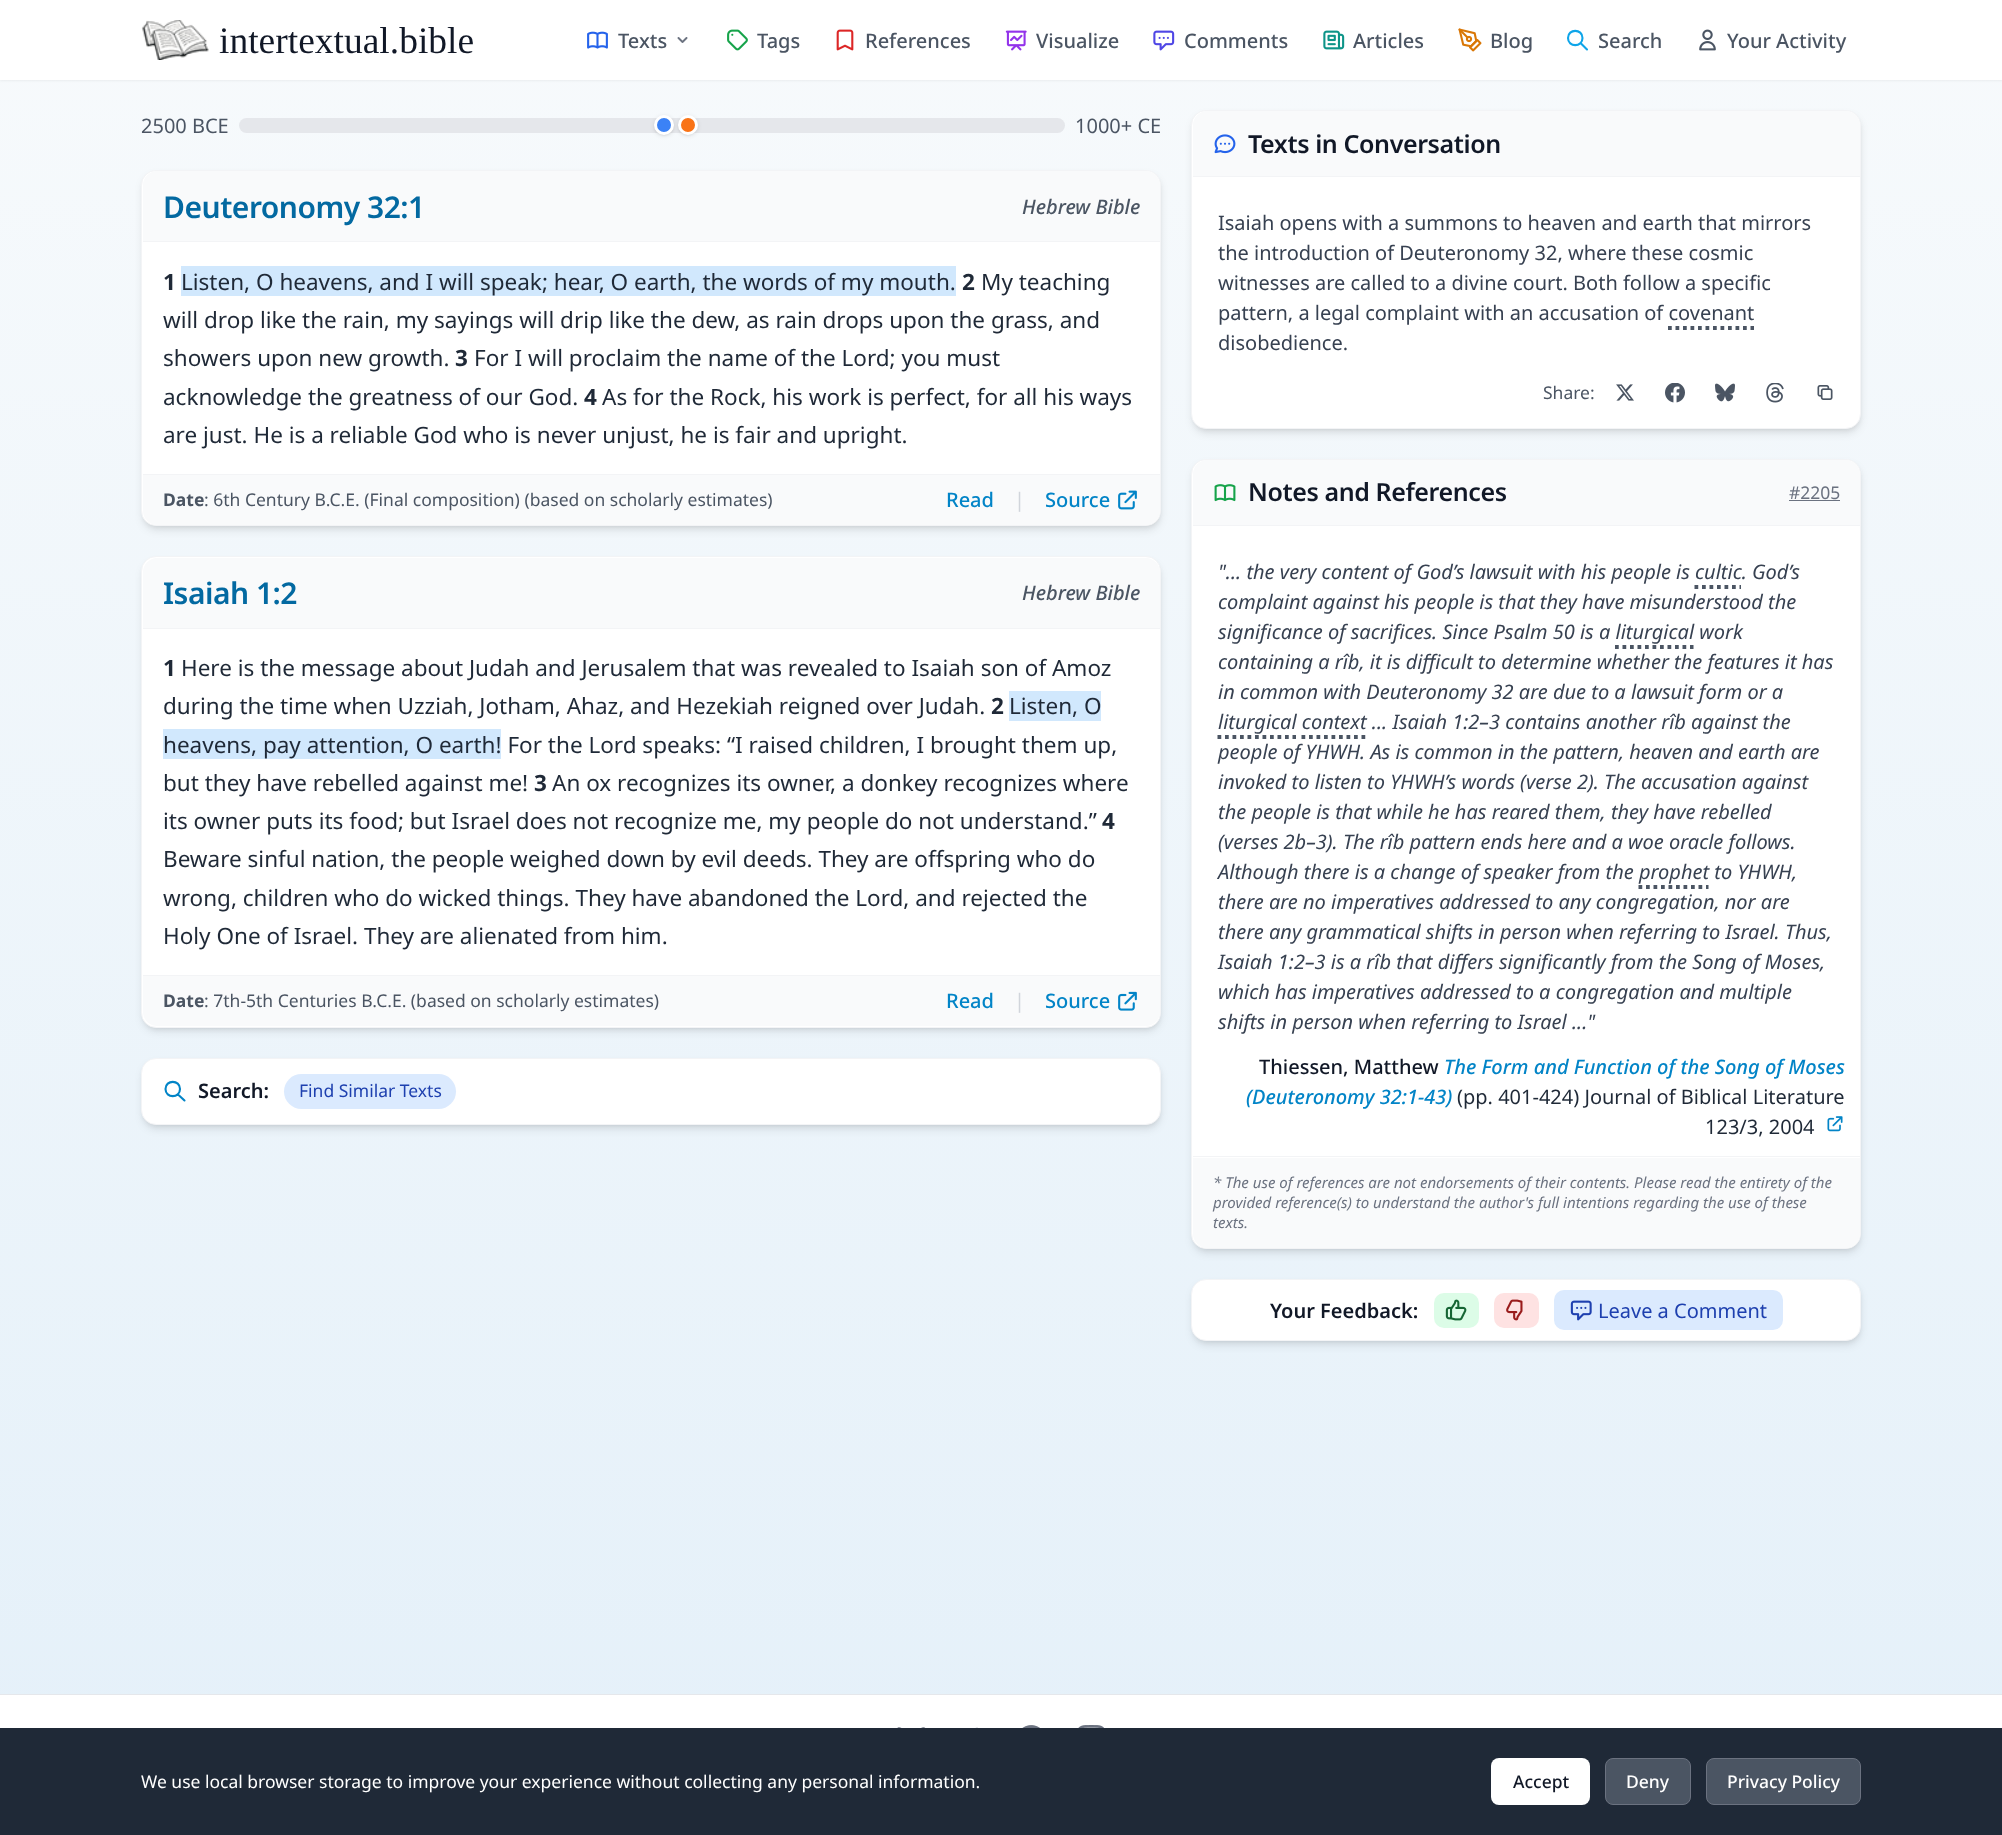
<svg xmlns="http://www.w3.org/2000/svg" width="2002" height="1835">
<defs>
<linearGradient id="g1" gradientUnits="userSpaceOnUse" x1="1001" y1="0" x2="1001" y2="1835"><stop offset="0" stop-color="#f7fafc"/><stop offset="1" stop-color="#e4f0f9"/></linearGradient>
</defs>
<rect width="100%" height="100%" fill="#fff"/>
<rect y="80" width="2002" height="1614" fill="url(#g1)"/>
<rect y="1" width="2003" height="80" fill="#0000000d" filter="blur(1px)"/>
<rect width="2002" height="80" fill="#fff"/>
<image x="141" y="20" width="68" height="40" href="media/1.png"/>
<text x="219" y="53" style="font-family:Liberation Serif;font-size:37.5px;fill:#111827">intertextual.bible</text>
<image x="587" y="31" width="21" height="18" href="media/2.png"/>
<text x="618" y="48" style="font-family:Noto Sans;font-size:20px;font-weight:500;fill:#4b5563">Texts</text>
<image x="677" y="37" width="11" height="6" href="media/3.png"/>
<image x="727" y="29" width="21" height="22" href="media/4.png"/>
<text x="757" y="48" style="font-family:Noto Sans;font-size:20px;font-weight:500;fill:#4b5563">Tags</text>
<image x="836" y="29" width="18" height="22" href="media/5.png"/>
<text x="865" y="48" style="font-family:Noto Sans;font-size:20px;font-weight:500;fill:#4b5563">References</text>
<image x="1005" y="30" width="22" height="21" href="media/6.png"/>
<text x="1036" y="48" style="font-family:Noto Sans;font-size:20px;font-weight:500;fill:#4b5563">Visualize</text>
<image x="1153" y="30" width="22" height="21" href="media/7.png"/>
<text x="1184" y="48" style="font-family:Noto Sans;font-size:20px;font-weight:500;fill:#4b5563">Comments</text>
<image x="1323" y="30" width="22" height="20" href="media/8.png"/>
<text x="1353" y="48" style="font-family:Noto Sans;font-size:20px;font-weight:500;fill:#4b5563">Articles</text>
<image x="1458" y="28" width="24" height="24" href="media/9.png"/>
<text x="1490" y="48" style="font-family:Noto Sans;font-size:20px;font-weight:500;fill:#4b5563">Blog</text>
<path d="M1587 49.5l-6.5-6.5m2-5c0 9.5-14.5 9.5-14.5 0c0-9.5 14.5-9.5 14.5 0z" fill="none" stroke="#0ea5e9" stroke-width="2.1" stroke-linecap="round" stroke-linejoin="round"/>
<text x="1598" y="48" style="font-family:Noto Sans;font-size:20px;font-weight:500;fill:#4b5563">Search</text>
<image x="1699" y="29" width="17" height="22" href="media/10.png"/>
<text x="1727" y="48" style="font-family:Noto Sans;font-size:20px;font-weight:500;fill:#4b5563">Your Activity</text>
<text x="141" y="133" style="font-family:Noto Sans;font-size:20px;fill:#4b5563">2500 BCE</text>
<rect x="239" y="118" width="826" height="15" rx="7.5" fill="#e5e7eb"/>
<rect x="655" y="118" width="18" height="17" rx="8.5" fill="#0000001a" filter="blur(1px)"/>
<rect x="654" y="116" width="20" height="20" rx="10" fill="#0000001a" filter="blur(2px)"/>
<circle cx="664" cy="125" r="8.5" fill="#3b82f6" stroke="#fff" stroke-width="3"/>
<rect x="679" y="118" width="17" height="17" rx="8.5" fill="#0000001a" filter="blur(1px)"/>
<rect x="678" y="116" width="20" height="20" rx="10" fill="#0000001a" filter="blur(2px)"/>
<circle cx="688" cy="125" r="8.5" fill="#f97316" stroke="#fff" stroke-width="3"/>
<text x="1075" y="133" style="font-family:Noto Sans;font-size:20px;fill:#4b5563">1000+ CE</text>
<rect x="144" y="175" width="1015" height="351" rx="13" fill="#0000001a" filter="blur(2.5px)"/>
<rect x="143" y="176" width="1017" height="354" rx="14" fill="#0000001a" filter="blur(4px)"/>
<rect x="141.5" y="170.5" width="1019" height="355" rx="14.5" fill="#fff" stroke="#f3f4f6"/>
<path d="M157 171h989c7.5 0 14 6.5 14 14v56h-1017v-56c0-7.5 6.5-14 14-14z" fill="#f9fafb"/>
<rect x="143" y="241" width="1017" height="1" fill="#f3f4f6"/>
<text x="163" y="218" style="font-family:Noto Sans;font-size:30px;font-weight:600;letter-spacing:-0.5px;fill:#0369a1">Deuteronomy 32:1</text>
<text x="1022" y="214" style="font-family:Noto Sans;font-size:20px;font-weight:500;font-style:italic;fill:#4b5563">Hebrew Bible</text>
<text x="163" y="290" style="font-family:Noto Sans;font-size:22.5px;font-weight:bold;fill:#1f2937">1</text>
<rect x="181" y="266" width="775" height="30" fill="#d1e8fd"/>
<text x="181" y="290" style="font-family:Noto Sans;font-size:22.5px;fill:#1f2937">Listen, O heavens, and I will speak; hear, O earth, the words of my mouth.</text>
<text x="962" y="290" style="font-family:Noto Sans;font-size:22.5px;font-weight:bold;fill:#1f2937">2</text>
<text x="981" y="290" style="font-family:Noto Sans;font-size:22.5px;fill:#1f2937">My teaching</text>
<text x="163" y="328" style="font-family:Noto Sans;font-size:22.5px;fill:#1f2937">will drop like the rain, my sayings will drip like the dew, as rain drops upon the grass, and</text>
<text x="163" y="366" style="font-family:Noto Sans;font-size:22.5px;fill:#1f2937">showers upon new growth.</text>
<text x="455" y="366" style="font-family:Noto Sans;font-size:22.5px;font-weight:bold;fill:#1f2937">3</text>
<text x="474" y="366" style="font-family:Noto Sans;font-size:22.5px;fill:#1f2937">For I will proclaim the name of the Lord; you must</text>
<text x="163" y="405" style="font-family:Noto Sans;font-size:22.5px;fill:#1f2937">acknowledge the greatness of our God.</text>
<text x="584" y="405" style="font-family:Noto Sans;font-size:22.5px;font-weight:bold;fill:#1f2937">4</text>
<text x="602" y="405" style="font-family:Noto Sans;font-size:22.5px;fill:#1f2937">As for the Rock, his work is perfect, for all his ways</text>
<text x="163" y="443" style="font-family:Noto Sans;font-size:22.5px;fill:#1f2937">are just. He is a reliable God who is never unjust, he is fair and upright.</text>
<path d="M143 475h1017v36c0 7.5-6.5 14-14 14h-989c-7.5 0-14-6.5-14-14z" fill="#f9fafb"/>
<rect x="143" y="474" width="1017" height="1" fill="#f3f4f6"/>
<text x="163" y="506" style="font-family:Noto Sans;font-size:17.5px;font-weight:bold;fill:#4b5563">Date</text>
<text x="204" y="506" style="font-family:Noto Sans;font-size:17.5px;fill:#4b5563">: 6th Century B.C.E. (Final composition) (based on scholarly estimates)</text>
<text x="946" y="507" style="font-family:Noto Sans;font-size:20px;font-weight:500;fill:#0284c7">Read</text>
<text x="1014" y="507" style="font-family:Noto Sans;font-size:20px;fill:#d1d5db">|</text>
<text x="1045" y="507" style="font-family:Noto Sans;font-size:20px;font-weight:500;fill:#0284c7">Source</text>
<image x="1118" y="490" width="19" height="20" href="media/11.png"/>
<rect x="144" y="561" width="1015" height="467" rx="13" fill="#0000001a" filter="blur(2.5px)"/>
<rect x="143" y="563" width="1017" height="468" rx="14" fill="#0000001a" filter="blur(4px)"/>
<rect x="141.5" y="556.5" width="1019" height="471" rx="14.5" fill="#fff" stroke="#f3f4f6"/>
<path d="M157 558h989c7.5 0 14 6.5 14 14v56h-1017v-56c0-7.5 6.5-14 14-14z" fill="#f9fafb"/>
<rect x="143" y="628" width="1017" height="1" fill="#f3f4f6"/>
<text x="163" y="604" style="font-family:Noto Sans;font-size:30px;font-weight:600;letter-spacing:-0.5px;fill:#0369a1">Isaiah 1:2</text>
<text x="1022" y="600" style="font-family:Noto Sans;font-size:20px;font-weight:500;font-style:italic;fill:#4b5563">Hebrew Bible</text>
<text x="163" y="676" style="font-family:Noto Sans;font-size:22.5px;font-weight:bold;fill:#1f2937">1</text>
<text x="181" y="676" style="font-family:Noto Sans;font-size:22.5px;fill:#1f2937">Here is the message about Judah and Jerusalem that was revealed to Isaiah son of Amoz</text>
<text x="163" y="714" style="font-family:Noto Sans;font-size:22.5px;fill:#1f2937">during the time when Uzziah, Jotham, Ahaz, and Hezekiah reigned over Judah.</text>
<text x="991" y="714" style="font-family:Noto Sans;font-size:22.5px;font-weight:bold;fill:#1f2937">2</text>
<rect x="1009" y="691" width="92" height="30" fill="#d1e8fd"/>
<text x="1009" y="714" style="font-family:Noto Sans;font-size:22.5px;fill:#1f2937">Listen, O</text>
<rect x="163" y="729" width="338" height="30" fill="#d1e8fd"/>
<text x="163" y="753" style="font-family:Noto Sans;font-size:22.5px;fill:#1f2937">heavens, pay attention, O earth! For the Lord speaks: “I raised children, I brought them up,</text>
<text x="163" y="791" style="font-family:Noto Sans;font-size:22.5px;fill:#1f2937">but they have rebelled against me!</text>
<text x="534" y="791" style="font-family:Noto Sans;font-size:22.5px;font-weight:bold;fill:#1f2937">3</text>
<text x="552" y="791" style="font-family:Noto Sans;font-size:22.5px;fill:#1f2937">An ox recognizes its owner, a donkey recognizes where</text>
<text x="163" y="829" style="font-family:Noto Sans;font-size:22.5px;fill:#1f2937">its owner puts its food; but Israel does not recognize me, my people do not understand.”</text>
<text x="1102" y="829" style="font-family:Noto Sans;font-size:22.5px;font-weight:bold;fill:#1f2937">4</text>
<text x="163" y="867" style="font-family:Noto Sans;font-size:22.5px;fill:#1f2937">Beware sinful nation, the people weighed down by evil deeds. They are offspring who do</text>
<text x="163" y="906" style="font-family:Noto Sans;font-size:22.5px;fill:#1f2937">wrong, children who do wicked things. They have abandoned the Lord, and rejected the</text>
<text x="163" y="944" style="font-family:Noto Sans;font-size:22.5px;fill:#1f2937">Holy One of Israel. They are alienated from him.</text>
<path d="M143 976h1017v36c0 7.5-6.5 14-14 14h-989c-7.5 0-14-6.5-14-14z" fill="#f9fafb"/>
<rect x="143" y="975" width="1017" height="1" fill="#f3f4f6"/>
<text x="163" y="1007" style="font-family:Noto Sans;font-size:17.5px;font-weight:bold;fill:#4b5563">Date</text>
<text x="204" y="1007" style="font-family:Noto Sans;font-size:17.5px;fill:#4b5563">: 7th-5th Centuries B.C.E. (based on scholarly estimates)</text>
<text x="946" y="1008" style="font-family:Noto Sans;font-size:20px;font-weight:500;fill:#0284c7">Read</text>
<text x="1014" y="1008" style="font-family:Noto Sans;font-size:20px;fill:#d1d5db">|</text>
<text x="1045" y="1008" style="font-family:Noto Sans;font-size:20px;font-weight:500;fill:#0284c7">Source</text>
<image x="1118" y="991" width="19" height="20" href="media/12.png"/>
<rect x="144" y="1063" width="1015" height="62" rx="13" fill="#0000001a" filter="blur(2.5px)"/>
<rect x="143" y="1064" width="1017" height="65" rx="14" fill="#0000001a" filter="blur(4px)"/>
<rect x="141.5" y="1058.5" width="1019" height="66" rx="14.5" fill="#fff" stroke="#f3f4f6"/>
<path d="M184.5 1100.5l-6.5-6m2-5.5c0 9.5-14.5 9.5-14.5 0c0-9.5 14.5-9.5 14.5 0z" fill="none" stroke="#0284c7" stroke-width="2.1" stroke-linecap="round" stroke-linejoin="round"/>
<text x="198" y="1098" style="font-family:Noto Sans;font-size:20px;font-weight:600;fill:#111827">Search:</text>
<rect x="284" y="1074" width="172" height="35" rx="17.5" fill="#dbeafe"/>
<text x="299" y="1097" style="font-family:Noto Sans;font-size:17.5px;fill:#1e40af">Find Similar Texts</text>
<rect x="1194" y="115" width="665" height="314" rx="13" fill="#0000001a" filter="blur(2.5px)"/>
<rect x="1193" y="116" width="667" height="317" rx="14" fill="#0000001a" filter="blur(4px)"/>
<rect x="1191.5" y="110.5" width="669" height="318" rx="14.5" fill="#fff" stroke="#f3f4f6"/>
<path d="M1207 111h639c7.5 0 14 6.5 14 14v51h-667v-51c0-7.5 6.5-14 14-14z" fill="#f9fafb"/>
<rect x="1193" y="176" width="667" height="1" fill="#f3f4f6"/>
<image x="1214" y="134" width="22" height="20" href="media/13.png"/>
<text x="1248" y="153" style="font-family:Noto Sans;font-size:25px;font-weight:600;letter-spacing:-0.4px;fill:#111827">Texts in Conversation</text>
<text x="1218" y="230" style="font-family:Noto Sans;font-size:20px;fill:#374151">Isaiah opens with a summons to heaven and earth that mirrors</text>
<text x="1218" y="260" style="font-family:Noto Sans;font-size:20px;fill:#374151">the introduction of Deuteronomy 32, where these cosmic</text>
<text x="1218" y="290" style="font-family:Noto Sans;font-size:20px;fill:#374151">witnesses are called to a divine court. Both follow a specific</text>
<text x="1218" y="320" style="font-family:Noto Sans;font-size:20px;fill:#374151">pattern, a legal complaint with an accusation of covenant</text>
<path d="M1668 328h86" fill="none" stroke="#4b5563" stroke-width="3.8" stroke-dasharray="3.75 3.75"/>
<text x="1218" y="350" style="font-family:Noto Sans;font-size:20px;fill:#374151">disobedience.</text>
<text x="1543" y="399" style="font-family:Noto Sans;font-size:17.5px;fill:#4b5563">Share:</text>
<image x="1616" y="384" width="18" height="17" href="media/14.png"/>
<image x="1665" y="383" width="20" height="20" href="media/15.png"/>
<image x="1715" y="383" width="20" height="19" href="media/16.png"/>
<image x="1766" y="383" width="18" height="20" href="media/17.png"/>
<image x="1817" y="385" width="16" height="15" href="media/18.png"/>
<rect x="1194" y="464" width="665" height="785" rx="13" fill="#0000001a" filter="blur(2.5px)"/>
<rect x="1193" y="465" width="667" height="788" rx="14" fill="#0000001a" filter="blur(4px)"/>
<rect x="1191.5" y="459.5" width="669" height="789" rx="14.5" fill="#fff" stroke="#f3f4f6"/>
<path d="M1207 460h639c7.5 0 14 6.5 14 14v51h-667v-51c0-7.5 6.5-14 14-14z" fill="#f9fafb"/>
<rect x="1193" y="525" width="667" height="1" fill="#f3f4f6"/>
<image x="1214" y="484" width="22" height="18" href="media/19.png"/>
<text x="1248" y="501" style="font-family:Noto Sans;font-size:25px;font-weight:600;letter-spacing:-0.4px;fill:#111827">Notes and References</text>
<text x="1789" y="499" style="font-family:Noto Sans;font-size:17.5px;fill:#6b7280">#2205</text>
<rect x="1789" y="500" width="51" height="1" fill="#6b7280"/>
<text x="1218" y="579" style="font-family:Noto Sans;font-size:20px;font-style:italic;fill:#374151">"... the very content of God’s lawsuit with his people is cultic. God’s</text>
<path d="M1694.5 587h46.5" fill="none" stroke="#4b5563" stroke-width="3.8" stroke-dasharray="3.75 3.75"/>
<text x="1218" y="609" style="font-family:Noto Sans;font-size:20px;font-style:italic;fill:#374151">complaint against his people is that they have misunderstood the</text>
<text x="1218" y="639" style="font-family:Noto Sans;font-size:20px;font-style:italic;fill:#374151">significance of sacrifices. Since Psalm 50 is a liturgical work</text>
<path d="M1615 647h78.5" fill="none" stroke="#4b5563" stroke-width="3.8" stroke-dasharray="3.75 3.75"/>
<text x="1218" y="669" style="font-family:Noto Sans;font-size:20px;font-style:italic;fill:#374151">containing a rîb, it is difficult to determine whether the features it has</text>
<text x="1218" y="699" style="font-family:Noto Sans;font-size:20px;font-style:italic;fill:#374151">in common with Deuteronomy 32 are due to a lawsuit form or a</text>
<text x="1218" y="729" style="font-family:Noto Sans;font-size:20px;font-style:italic;fill:#374151">liturgical context ... Isaiah 1:2–3 contains another rîb against the</text>
<path d="M1217.5 737h78.5" fill="none" stroke="#4b5563" stroke-width="3.8" stroke-dasharray="3.75 3.75"/>
<path d="M1301.5 737h64.5" fill="none" stroke="#4b5563" stroke-width="3.8" stroke-dasharray="3.75 3.75"/>
<text x="1218" y="759" style="font-family:Noto Sans;font-size:20px;font-style:italic;fill:#374151">people of YHWH. As is common in the pattern, heaven and earth are</text>
<text x="1218" y="789" style="font-family:Noto Sans;font-size:20px;font-style:italic;fill:#374151">invoked to listen to YHWH’s words (verse 2). The accusation against</text>
<text x="1218" y="819" style="font-family:Noto Sans;font-size:20px;font-style:italic;fill:#374151">the people is that while he has reared them, they have rebelled</text>
<text x="1218" y="849" style="font-family:Noto Sans;font-size:20px;font-style:italic;fill:#374151">(verses 2b–3). The rîb pattern ends here and a woe oracle follows.</text>
<text x="1218" y="879" style="font-family:Noto Sans;font-size:20px;font-style:italic;fill:#374151">Although there is a change of speaker from the prophet to YHWH,</text>
<path d="M1638.5 887h70" fill="none" stroke="#4b5563" stroke-width="3.8" stroke-dasharray="3.75 3.75"/>
<text x="1218" y="909" style="font-family:Noto Sans;font-size:20px;font-style:italic;fill:#374151">there are no imperatives addressed to any congregation, nor are</text>
<text x="1218" y="939" style="font-family:Noto Sans;font-size:20px;font-style:italic;fill:#374151">there any grammatical shifts in person when referring to Israel. Thus,</text>
<text x="1218" y="969" style="font-family:Noto Sans;font-size:20px;font-style:italic;fill:#374151">Isaiah 1:2–3 is a rîb that differs significantly from the Song of Moses,</text>
<text x="1218" y="999" style="font-family:Noto Sans;font-size:20px;font-style:italic;fill:#374151">which has imperatives addressed to a congregation and multiple</text>
<text x="1218" y="1029" style="font-family:Noto Sans;font-size:20px;font-style:italic;fill:#374151">shifts in person when referring to Israel ..."</text>
<text x="1259" y="1074" style="font-family:Noto Sans;font-size:20px;font-weight:500;fill:#111827">Thiessen, Matthew</text>
<text x="1444" y="1074" style="font-family:Noto Sans;font-size:20px;font-weight:500;font-style:italic;fill:#0284c7">The Form and Function of the Song of Moses</text>
<text x="1246" y="1104" style="font-family:Noto Sans;font-size:20px;font-weight:500;font-style:italic;fill:#0284c7">(Deuteronomy 32:1-43)</text>
<text x="1457" y="1104" style="font-family:Noto Sans;font-size:20px;fill:#1f2937">(pp. 401-424) Journal of Biblical Literature</text>
<text x="1705" y="1134" style="font-family:Noto Sans;font-size:20px;fill:#1f2937">123/3, 2004</text>
<image x="1827" y="1116" width="16" height="16" href="media/20.png"/>
<path d="M1193 1158h667v76c0 7.5-6.5 14-14 14h-639c-7.5 0-14-6.5-14-14z" fill="#f9fafb"/>
<rect x="1193" y="1156" width="667" height="1" fill="#f3f4f6"/>
<text x="1213" y="1188" style="font-family:Noto Sans;font-size:15px;font-style:italic;fill:#6b7280">* The use of references are not endorsements of their contents. Please read the entirety of the</text>
<text x="1213" y="1208" style="font-family:Noto Sans;font-size:15px;font-style:italic;fill:#6b7280">provided reference(s) to understand the author's full intentions regarding the use of these</text>
<text x="1213" y="1228" style="font-family:Noto Sans;font-size:15px;font-style:italic;fill:#6b7280">texts.</text>
<rect x="1194" y="1284" width="665" height="57" rx="13" fill="#0000001a" filter="blur(2.5px)"/>
<rect x="1193" y="1285" width="667" height="60" rx="14" fill="#0000001a" filter="blur(4px)"/>
<rect x="1191.5" y="1279.5" width="669" height="61" rx="14.5" fill="#fff" stroke="#f3f4f6"/>
<text x="1270" y="1318" style="font-family:Noto Sans;font-size:20px;font-weight:600;fill:#111827">Your Feedback:</text>
<rect x="1434" y="1293" width="45" height="35" rx="10" fill="#dcfce7"/>
<image x="1445" y="1299" width="22" height="22" href="media/21.png"/>
<rect x="1494" y="1293" width="45" height="35" rx="10" fill="#fee2e2"/>
<image x="1506" y="1299" width="17" height="22" href="media/22.png"/>
<rect x="1554" y="1290" width="229" height="40" rx="10" fill="#dbeafe"/>
<image x="1570" y="1300" width="22" height="21" href="media/23.png"/>
<text x="1598" y="1318" style="font-family:Noto Sans;font-size:20px;fill:#1e40af">Leave a Comment</text>
<rect y="1694" width="2002" height="1" fill="#e5e7eb"/>
<image x="897" y="1727" width="29" height="1" href="media/24.png"/>
<image x="975" y="1727" width="3" height="1" href="media/25.png"/>
<image x="1022" y="1725" width="18" height="3" href="media/26.png"/>
<image x="1078" y="1725" width="26" height="3" href="media/27.png"/>
<rect y="1728" width="2002" height="107" fill="#1f2937"/>
<text x="141" y="1788" style="font-family:Noto Sans;font-size:17.5px;fill:#fff">We use local browser storage to improve your experience without collecting any personal information.</text>
<rect x="1491" y="1758" width="99" height="47" rx="8" fill="#fff"/>
<text x="1513" y="1788" style="font-family:Noto Sans;font-size:17.5px;font-weight:500;fill:#111827">Accept</text>
<rect x="1605.5" y="1758.5" width="85" height="46" rx="7.5" fill="#4b5563" stroke="#6b7280"/>
<text x="1626" y="1788" style="font-family:Noto Sans;font-size:17.5px;font-weight:500;fill:#fff">Deny</text>
<rect x="1706.5" y="1758.5" width="154" height="46" rx="7.5" fill="#4b5563" stroke="#6b7280"/>
<text x="1727" y="1788" style="font-family:Noto Sans;font-size:17.5px;font-weight:500;fill:#fff">Privacy Policy</text>
</svg>
